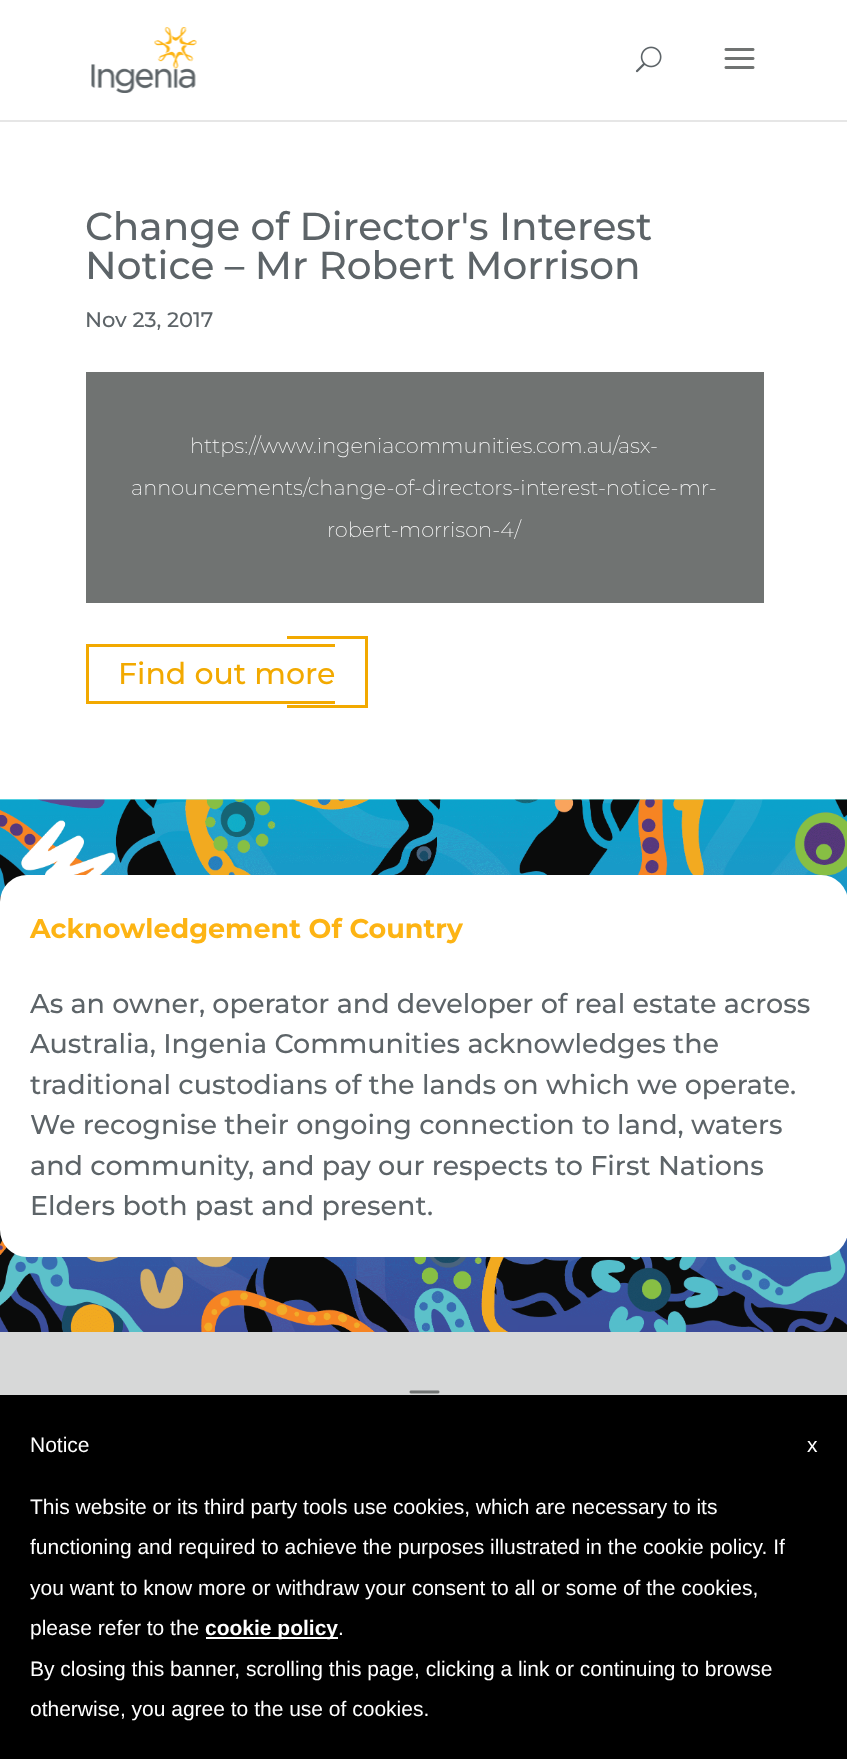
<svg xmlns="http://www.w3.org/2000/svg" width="847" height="1759">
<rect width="100%" height="100%" fill="#fff"/>
<path d="M0 120v2h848v-120v118z" fill="#e6e6e6"/>
<image x="91" y="27" width="106" height="66" href="media/1.png"/>
<image x="635" y="46" width="27" height="27" href="media/2.png"/>
<image x="724" y="48" width="31" height="21" href="media/3.png"/>
<text x="85" y="240" style="font-family:Montserrat;font-size:39px;font-weight:100;fill:#5d6468">Change of Director's Interest</text>
<text x="85" y="279" style="font-family:Montserrat;font-size:39px;font-weight:100;fill:#5d6468">Notice – Mr Robert Morrison</text>
<text x="85" y="327" style="font-family:Montserrat;font-size:21px;font-weight:100;fill:#5d6468">Nov 23, 2017</text>
<rect x="86" y="372" width="678" height="231" fill="#707372"/>
<text x="190" y="453" style="font-family:'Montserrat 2';font-size:21px;font-weight:100;fill:#fff">https://www.ingeniacommunities.com.au/asx-</text>
<text x="131" y="495" style="font-family:'Montserrat 2';font-size:21px;font-weight:100;fill:#fff">announcements/change-of-directors-interest-notice-mr-</text>
<text x="327" y="537" style="font-family:'Montserrat 2';font-size:21px;font-weight:100;fill:#fff">robert-morrison-4/</text>
<text x="118" y="684" style="font-family:Montserrat;font-size:30px;font-weight:100;fill:#f2a900">Find out more</text>
<rect x="86" y="644" width="249" height="3" fill="#f2a900"/>
<rect x="86" y="701" width="249" height="3" fill="#f2a900"/>
<rect x="86" y="644" width="3" height="60" fill="#f2a900"/>
<rect x="287" y="636" width="81" height="3" fill="#f2a900"/>
<rect x="365" y="636" width="3" height="72" fill="#f2a900"/>
<rect x="287" y="705" width="81" height="3" fill="#f2a900"/>
<image x="0" y="799" width="847" height="533" href="media/4.png"/>
<rect y="875" width="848" height="382" rx="27" fill="#fff"/>
<text x="30" y="938" style="font-family:'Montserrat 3';font-size:27px;font-weight:100;fill:#fdb414">Acknowledgement Of Country</text>
<text x="30" y="1013" style="font-family:Montserrat;font-size:27px;font-weight:100;fill:#5d6468">As an owner, operator and developer of real estate across</text>
<text x="30" y="1053" style="font-family:Montserrat;font-size:27px;font-weight:100;fill:#5d6468">Australia, Ingenia Communities acknowledges the</text>
<text x="30" y="1094" style="font-family:Montserrat;font-size:27px;font-weight:100;fill:#5d6468">traditional custodians of the lands on which we operate.</text>
<text x="30" y="1134" style="font-family:Montserrat;font-size:27px;font-weight:100;fill:#5d6468">We recognise their ongoing connection to land, waters</text>
<text x="30" y="1175" style="font-family:Montserrat;font-size:27px;font-weight:100;fill:#5d6468">and community, and pay our respects to First Nations</text>
<text x="30" y="1215" style="font-family:Montserrat;font-size:27px;font-weight:100;fill:#5d6468">Elders both past and present.</text>
<rect y="1332" width="847" height="63" fill="#d7d8d8"/>
<image x="409" y="1390" width="31" height="4" href="media/5.png"/>
<rect y="1395" width="847" height="364" fill="#000"/>
<text x="30" y="1452" style="font-family:Liberation Sans;font-size:21px;fill:#fff">Notice</text>
<text x="30" y="1514" style="font-family:Liberation Sans;font-size:21px;fill:#fff">This website or its third party tools use cookies, which are necessary to its</text>
<text x="30" y="1554" style="font-family:Liberation Sans;font-size:21px;fill:#fff">functioning and required to achieve the purposes illustrated in the cookie policy. If</text>
<text x="30" y="1595" style="font-family:Liberation Sans;font-size:21px;fill:#fff">you want to know more or withdraw your consent to all or some of the cookies,</text>
<text x="30" y="1635" style="font-family:Liberation Sans;font-size:21px;fill:#fff">please refer to the</text>
<rect x="206" y="1637" width="132" height="2" fill="#fff"/>
<text x="205" y="1635" style="font-family:Liberation Sans;font-size:21px;font-weight:bold;fill:#fff">cookie policy</text>
<text x="338" y="1635" style="font-family:Liberation Sans;font-size:21px;fill:#fff">.</text>
<text x="30" y="1676" style="font-family:Liberation Sans;font-size:21px;fill:#fff">By closing this banner, scrolling this page, clicking a link or continuing to browse</text>
<text x="30" y="1716" style="font-family:Liberation Sans;font-size:21px;fill:#fff">otherwise, you agree to the use of cookies.</text>
<text x="807" y="1452" style="font-family:Liberation Sans;font-size:21px;fill:#fff">x</text>
</svg>
